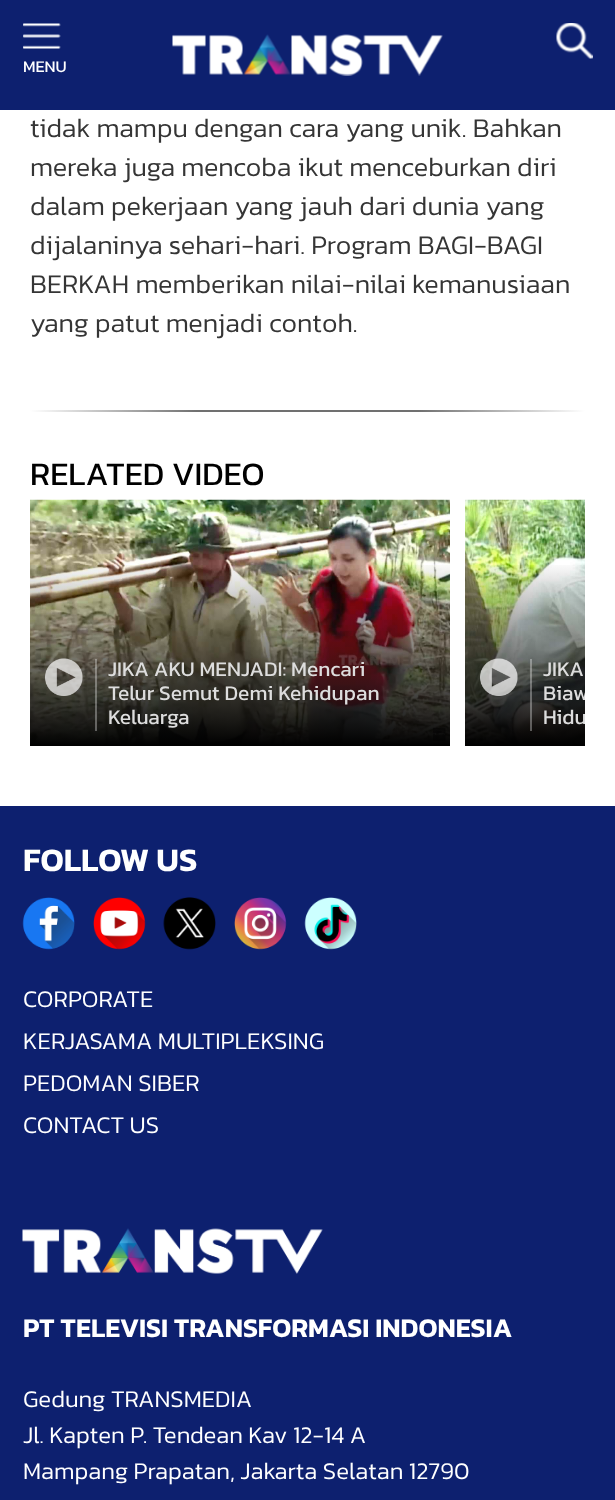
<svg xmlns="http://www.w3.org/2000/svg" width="615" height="1500">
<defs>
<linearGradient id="g1" gradientUnits="userSpaceOnUse" x1="30" y1="410" x2="585" y2="410"><stop offset="0" stop-color="#fff"/><stop offset="0.3" stop-color="#707070"/><stop offset="0.7" stop-color="#707070"/><stop offset="1" stop-color="#fff"/></linearGradient>
<linearGradient id="g2" gradientUnits="userSpaceOnUse" x1="240" y1="500" x2="240" y2="746"><stop offset="0" stop-color="#181818" stop-opacity="0"/><stop offset="0.25" stop-color="#181818" stop-opacity="0"/><stop offset="0.75" stop-color="#181818" stop-opacity="0.75"/><stop offset="1" stop-color="#000"/></linearGradient>
<linearGradient id="g3" gradientUnits="userSpaceOnUse" x1="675" y1="500" x2="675" y2="746"><stop offset="0" stop-color="#181818" stop-opacity="0"/><stop offset="0.25" stop-color="#181818" stop-opacity="0"/><stop offset="0.75" stop-color="#181818" stop-opacity="0.75"/><stop offset="1" stop-color="#000"/></linearGradient>
<clipPath id="clip1"><rect x="465" y="500" width="120" height="246"/></clipPath>
</defs>
<rect width="100%" height="100%" fill="#fff"/>
<rect width="615" height="110" fill="#0d206f"/>
<image x="23" y="23" width="38" height="26" href="media/1.png"/>
<text x="23" y="72" style="font-family:Kanit;font-size:16.5px;fill:#fff">MENU</text>
<image x="172" y="34" width="271" height="42" href="media/2.png"/>
<image x="556" y="23" width="37" height="36" href="media/3.png"/>
<text x="30" y="137" style="font-family:Kanit;font-size:27px;font-weight:300;fill:#353535">tidak mampu dengan cara yang unik. Bahkan</text>
<text x="30" y="176" style="font-family:Kanit;font-size:27px;font-weight:300;fill:#353535">mereka juga mencoba ikut menceburkan diri</text>
<text x="30" y="215" style="font-family:Kanit;font-size:27px;font-weight:300;fill:#353535">dalam pekerjaan yang jauh dari dunia yang</text>
<text x="30" y="254" style="font-family:Kanit;font-size:27px;font-weight:300;fill:#353535">dijalaninya sehari-hari. Program BAGI-BAGI</text>
<text x="30" y="293" style="font-family:Kanit;font-size:27px;font-weight:300;fill:#353535">BERKAH memberikan nilai-nilai kemanusiaan</text>
<text x="30" y="332" style="font-family:Kanit;font-size:27px;font-weight:300;fill:#353535">yang patut menjadi contoh.</text>
<rect x="30" y="410" width="555" height="2" fill="url(#g1)"/>
<text x="30" y="485" style="font-family:Kanit;font-size:33px;fill:#000">RELATED VIDEO</text>
<image x="30" y="499" width="420" height="246" href="media/4.png"/>
<rect x="30" y="565" width="420" height="181" fill="url(#g2)"/>
<image x="45" y="658" width="38" height="38" href="media/5.png"/>
<rect x="95" y="659" width="2" height="72" fill="#ffffff52"/>
<text x="108" y="676" style="font-family:Kanit;font-size:21px;fill:#ddd">JIKA AKU MENJADI: Mencari</text>
<text x="108" y="700" style="font-family:Kanit;font-size:21px;fill:#ddd">Telur Semut Demi Kehidupan</text>
<text x="108" y="724" style="font-family:Kanit;font-size:21px;fill:#ddd">Keluarga</text>
<image x="465" y="499" width="120" height="246" href="media/6.png"/>
<rect x="465" y="565" width="120" height="181" fill="url(#g3)"/>
<image x="480" y="658" width="38" height="38" href="media/7.png"/>
<rect x="530" y="659" width="2" height="72" fill="#ffffff52"/>
<text x="543" y="676" style="font-family:Kanit;font-size:21px;fill:#ddd">JIKA</text>
<g clip-path="url(#clip1)">
<text x="543" y="700" style="font-family:Kanit;font-size:21px;fill:#ddd">Biaw</text>
<text x="543" y="724" style="font-family:Kanit;font-size:21px;fill:#ddd">Hidu</text>
</g>
<rect y="806" width="615" height="694" fill="#0d206f"/>
<text x="23" y="871" style="font-family:Kanit;font-size:33px;font-weight:600;fill:#fff">FOLLOW US</text>
<image x="22" y="897" width="53" height="53" href="media/8.png"/>
<image x="93" y="897" width="53" height="53" href="media/9.png"/>
<image x="163" y="897" width="53" height="53" href="media/10.png"/>
<image x="234" y="897" width="53" height="53" href="media/11.png"/>
<image x="304" y="897" width="53" height="53" href="media/12.png"/>
<text x="23" y="1007" style="font-family:Kanit;font-size:24px;font-weight:300;fill:#fff">CORPORATE</text>
<text x="23" y="1049" style="font-family:Kanit;font-size:24px;font-weight:300;fill:#fff">KERJASAMA MULTIPLEKSING</text>
<text x="23" y="1091" style="font-family:Kanit;font-size:24px;font-weight:300;fill:#fff">PEDOMAN SIBER</text>
<text x="23" y="1133" style="font-family:Kanit;font-size:24px;font-weight:300;fill:#fff">CONTACT US</text>
<image x="22" y="1228" width="301" height="46" href="media/13.png"/>
<text x="23" y="1337" style="font-family:Kanit;font-size:27px;font-weight:600;fill:#fff">PT TELEVISI TRANSFORMASI INDONESIA</text>
<text x="23" y="1407" style="font-family:Kanit;font-size:24px;font-weight:300;fill:#fff">Gedung TRANSMEDIA</text>
<text x="23" y="1443" style="font-family:Kanit;font-size:24px;font-weight:300;fill:#fff">Jl. Kapten P. Tendean Kav 12-14 A</text>
<text x="23" y="1479" style="font-family:Kanit;font-size:24px;font-weight:300;fill:#fff">Mampang Prapatan, Jakarta Selatan 12790</text>
</svg>
